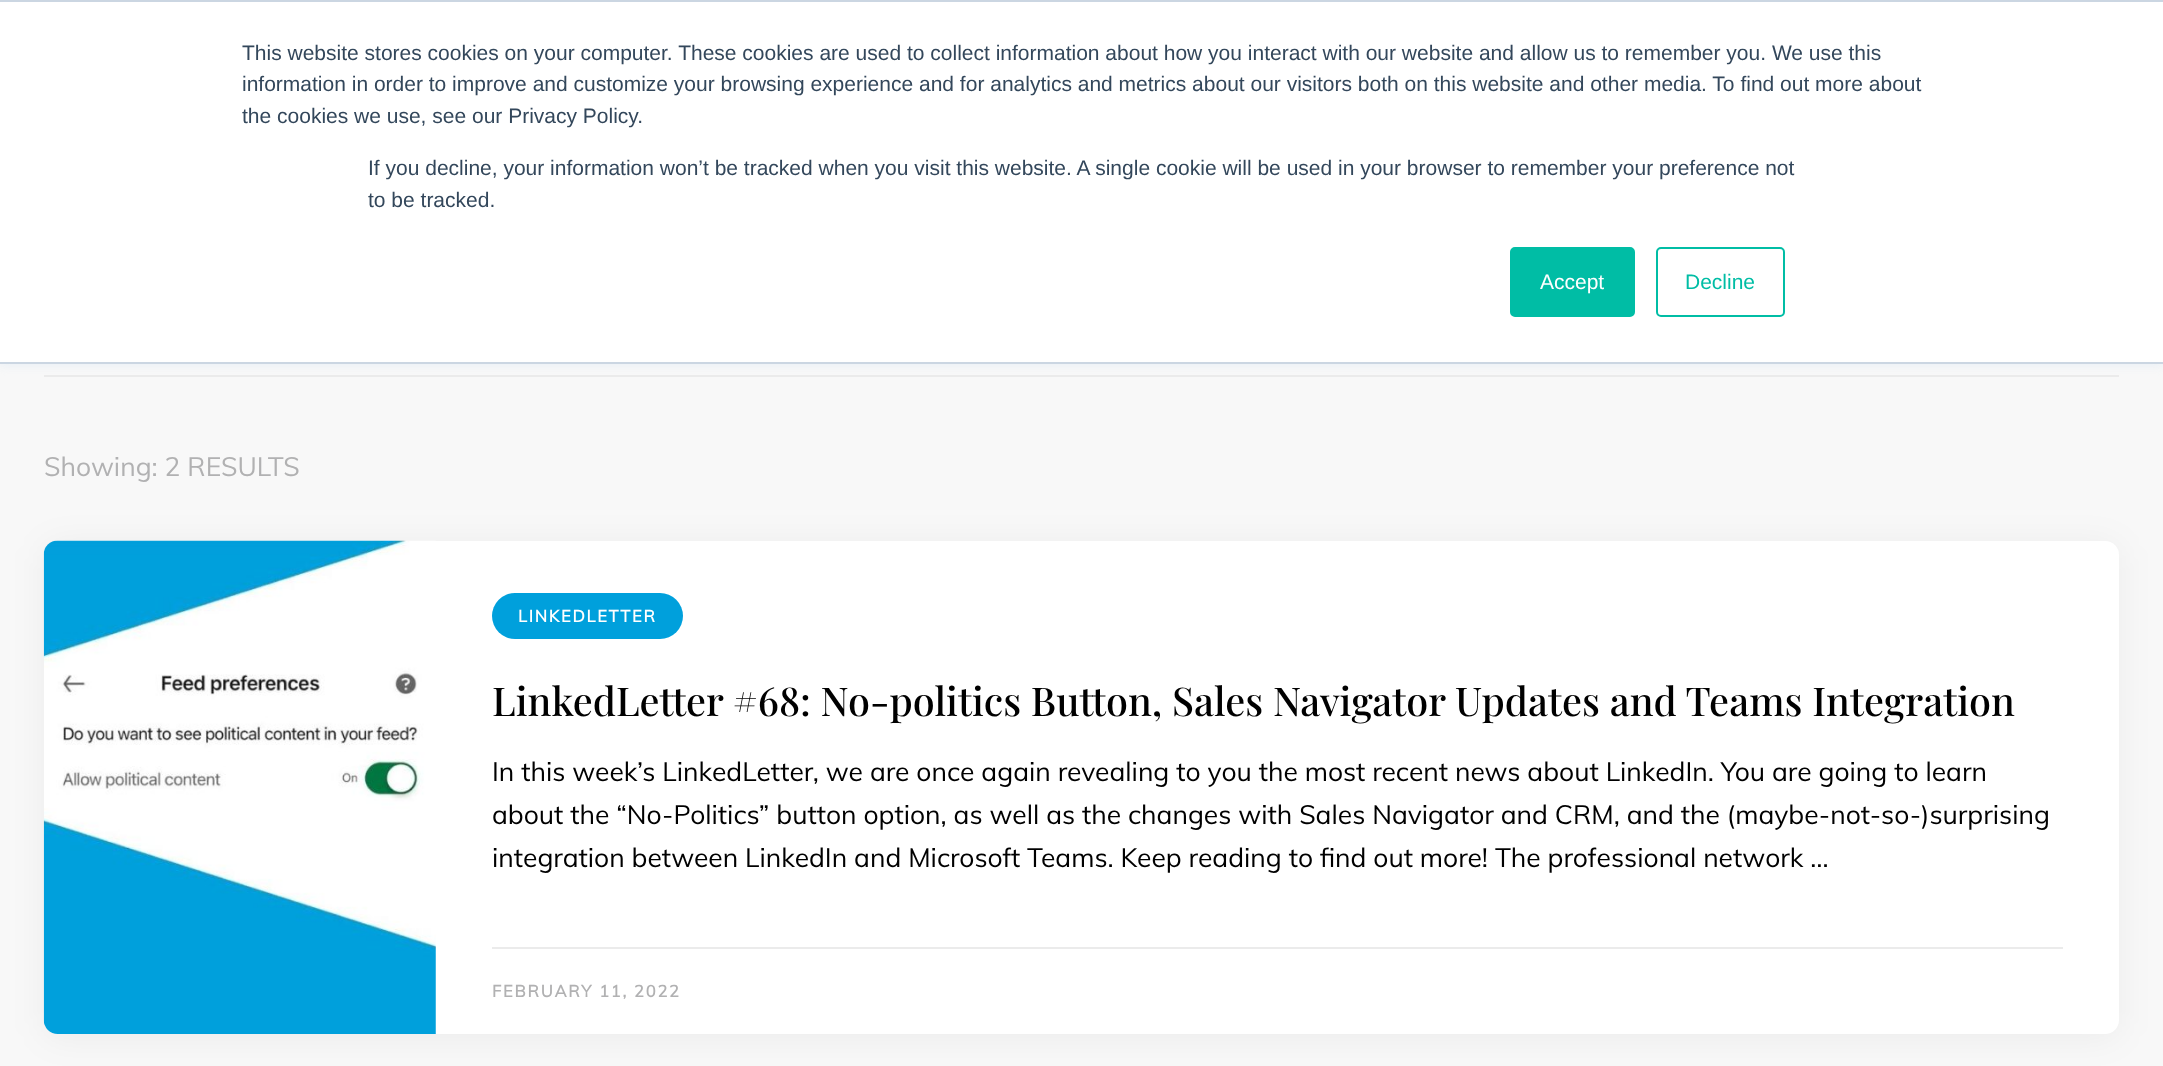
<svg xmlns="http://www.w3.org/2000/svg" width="2163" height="1066">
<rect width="100%" height="100%" fill="#f8f8f8"/>
<rect x="44" y="375" width="2075" height="2" fill="#ebebeb"/>
<rect y="2" width="2163" height="364" fill="#eaf0f6" filter="blur(4.5px)"/>
<rect y="2" width="2163" height="360" fill="#fff"/>
<rect width="2163" height="2" fill="#cbd6e2"/>
<rect y="362" width="2163" height="2" fill="#cbd6e2"/>
<text x="242" y="60" style="font-family:Liberation Sans;font-size:21px;fill:#33475b">This website stores cookies on your computer. These cookies are used to collect information about how you interact with our website and allow us to remember you. We use this</text>
<text x="242" y="91" style="font-family:Liberation Sans;font-size:21px;fill:#33475b">information in order to improve and customize your browsing experience and for analytics and metrics about our visitors both on this website and other media. To find out more about</text>
<text x="242" y="123" style="font-family:Liberation Sans;font-size:21px;fill:#33475b">the cookies we use, see our Privacy Policy.</text>
<text x="368" y="175" style="font-family:Liberation Sans;font-size:21px;fill:#33475b">If you decline, your information won’t be tracked when you visit this website. A single cookie will be used in your browser to remember your preference not</text>
<text x="368" y="207" style="font-family:Liberation Sans;font-size:21px;fill:#33475b">to be tracked.</text>
<rect x="1511" y="248" width="123" height="68" rx="4" fill="#00bda5" stroke="#00bda5" stroke-width="2"/>
<text x="1540" y="289" style="font-family:Liberation Sans;font-size:21px;fill:#fff">Accept</text>
<rect x="1657" y="248" width="127" height="68" rx="4" fill="none" stroke="#00bda5" stroke-width="2"/>
<text x="1685" y="289" style="font-family:Liberation Sans;font-size:21px;fill:#00bda5">Decline</text>
<text x="44" y="476" style="font-family:Muli;font-size:26.45px;fill:#b1b1b2">Showing: 2 RESULTS</text>
<rect x="44" y="544" width="2075" height="494" rx="14" fill="#0000000d" filter="blur(17.5px)"/>
<rect x="44" y="541" width="2075" height="493" rx="14" fill="#fff"/>
<image x="43" y="540" width="393" height="494" href="media/1.png"/>
<rect x="492" y="593" width="191" height="46" rx="23" fill="#00a0dc"/>
<text x="518" y="622" style="font-family:Muli;font-size:16.5px;font-weight:bold;letter-spacing:1.75px;fill:#fff">LINKEDLETTER</text>
<text x="492" y="716" style="font-family:Playfair Display;font-size:39.65px;font-weight:500;fill:#000">LinkedLetter #68: No-politics Button, Sales Navigator Updates and Teams Integration</text>
<text x="492" y="781" style="font-family:Muli;font-size:26.45px;fill:#000">In this week’s LinkedLetter, we are once again revealing to you the most recent news about LinkedIn. You are going to learn</text>
<text x="492" y="824" style="font-family:Muli;font-size:26.45px;fill:#000">about the “No-Politics” button option, as well as the changes with Sales Navigator and CRM, and the (maybe-not-so-)surprising</text>
<text x="492" y="867" style="font-family:Muli;font-size:26.45px;fill:#000">integration between LinkedIn and Microsoft Teams. Keep reading to find out more! The professional network …</text>
<rect x="492" y="947" width="1571" height="2" fill="#ebebeb"/>
<text x="492" y="997" style="font-family:Muli;font-size:16.5px;font-weight:bold;letter-spacing:1.75px;fill:#b1b1b2">FEBRUARY 11, 2022</text>
</svg>
